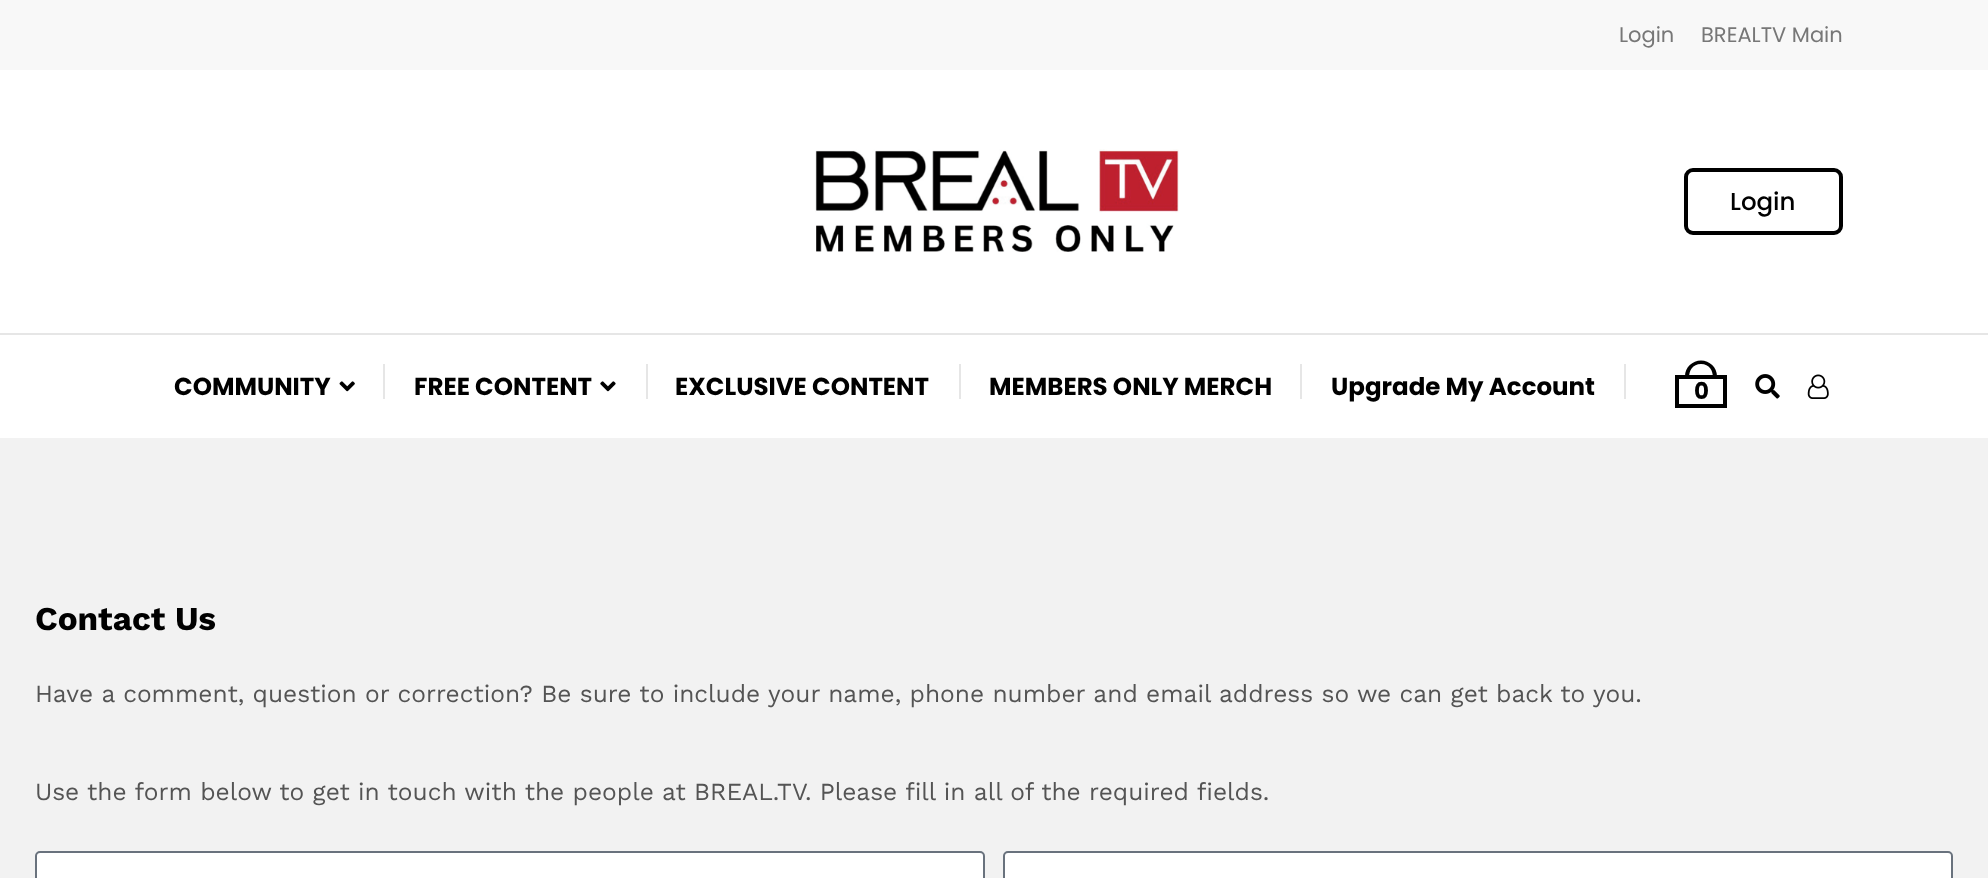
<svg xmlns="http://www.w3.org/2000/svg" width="1988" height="878">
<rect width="100%" height="100%" fill="#f2f2f2"/>
<rect width="1988" height="70" fill="#f8f8f8"/>
<text x="1619" y="42" style="font-family:Poppins;font-size:21px;fill:#777">Login</text>
<text x="1701" y="42" style="font-family:Poppins;font-size:21px;fill:#777">BREALTV Main</text>
<rect y="70" width="1988" height="368" fill="#fff"/>
<image x="815" y="149" width="364" height="103" href="media/1.png"/>
<rect x="1686" y="170" width="155" height="63" rx="7" fill="none" stroke="#000" stroke-width="4"/>
<text x="1730" y="210" style="font-family:Poppins;font-size:24.5px;font-weight:500;fill:#000">Login</text>
<rect y="333" width="1988" height="2" fill="#e6e6e6"/>
<text x="174" y="395" style="font-family:Poppins;font-size:24.5px;font-weight:bold;fill:#000">COMMUNITY</text>
<image x="339" y="381" width="16" height="11" href="media/2.png"/>
<rect x="383" y="364" width="2" height="35" fill="#e6e6e6"/>
<text x="414" y="395" style="font-family:Poppins;font-size:24.5px;font-weight:bold;fill:#000">FREE CONTENT</text>
<image x="600" y="381" width="16" height="11" href="media/3.png"/>
<rect x="646" y="364" width="2" height="35" fill="#e6e6e6"/>
<text x="675" y="395" style="font-family:Poppins;font-size:24.5px;font-weight:bold;fill:#000">EXCLUSIVE CONTENT</text>
<rect x="959" y="364" width="2" height="35" fill="#e6e6e6"/>
<text x="989" y="395" style="font-family:Poppins;font-size:24.5px;font-weight:bold;fill:#000">MEMBERS ONLY MERCH</text>
<rect x="1300" y="364" width="2" height="35" fill="#e6e6e6"/>
<text x="1331" y="395" style="font-family:Poppins;font-size:24.5px;font-weight:bold;fill:#000">Upgrade My Account</text>
<rect x="1624" y="364" width="2" height="35" fill="#e6e6e6"/>
<rect x="1677" y="377" width="48" height="29" fill="none" stroke="#000" stroke-width="4"/>
<path d="M1701 360.5c8.5 0 16 7 16 15.5v2h-32v-2c0-8.5 7.5-15.5 16-15.5zm0 3.5c8.5 0 12 6.5 12 14h-24c0-7.5 3.5-14 12-14z" fill="#000" fill-rule="evenodd"/>
<text x="1694" y="399" style="font-family:Poppins;font-size:23px;font-weight:bold;fill:#000">0</text>
<image x="1755" y="374" width="25" height="25" href="media/4.png"/>
<image x="1807" y="374" width="22" height="25" href="media/5.png"/>
<text x="35" y="630" style="font-family:Work Sans;font-size:33.25px;font-weight:bold;fill:#000">Contact Us</text>
<text x="35" y="702" style="font-family:Work Sans;font-size:24.5px;fill:#545454">Have a comment, question or correction? Be sure to include your name, phone number and email address so we can get back to you.</text>
<text x="35" y="800" style="font-family:Work Sans;font-size:24.5px;fill:#545454">Use the form below to get in touch with the people at BREAL.TV. Please fill in all of the required fields.</text>
<rect x="36" y="852" width="948" height="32" rx="4" fill="#fff" stroke="#69727d" stroke-width="2"/>
<rect x="1004" y="852" width="948" height="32" rx="4" fill="#fff" stroke="#69727d" stroke-width="2"/>
</svg>
